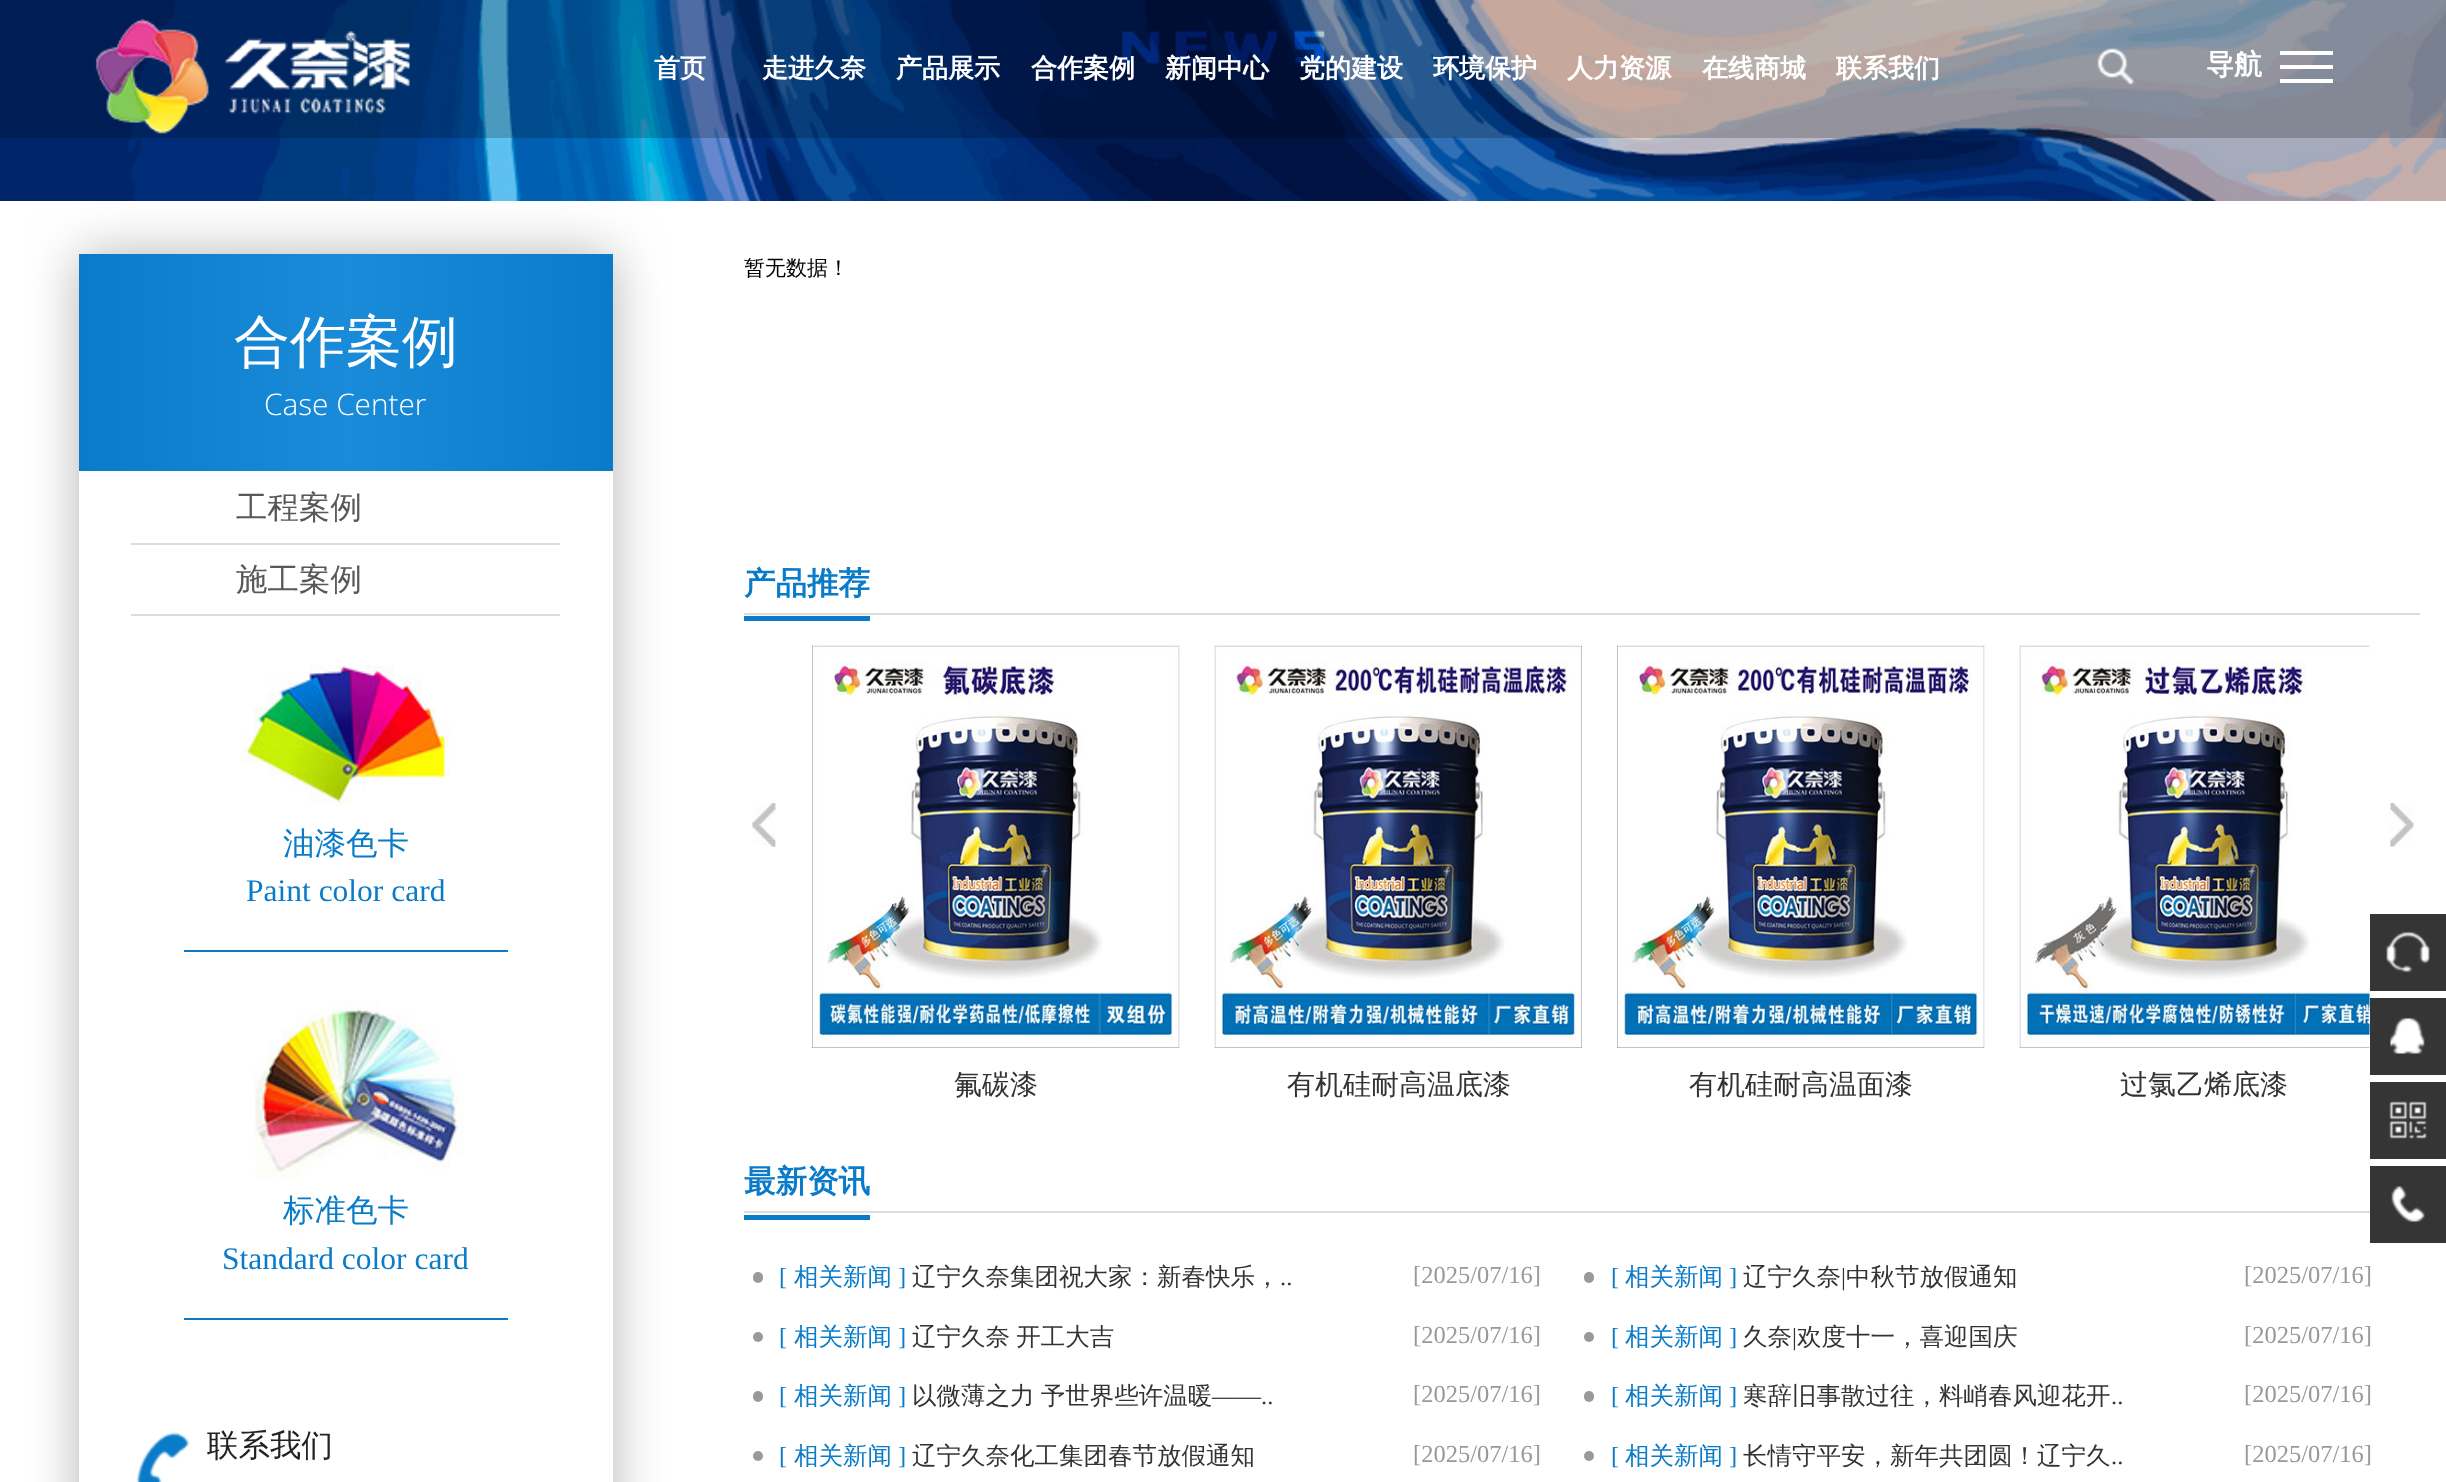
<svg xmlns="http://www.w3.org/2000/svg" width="2446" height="1482">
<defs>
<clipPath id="clip1"><rect x="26" y="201" width="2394" height="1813"/></clipPath>
<clipPath id="clip2"><path d="M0 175h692v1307h-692zm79 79h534v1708h-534z" clip-rule="evenodd"/></clipPath>
<linearGradient id="g1" gradientUnits="userSpaceOnUse" x1="79" y1="362" x2="613" y2="362"><stop offset="0" stop-color="#097bc8"/><stop offset="0.5" stop-color="#198bd8"/><stop offset="1" stop-color="#097bc8"/></linearGradient>
</defs>
<rect width="100%" height="100%" fill="#fff"/>
<image x="0" y="0" width="2446" height="201" href="media/1.png"/>
<rect width="2446" height="138" fill="#00000033"/>
<image x="2097" y="48" width="38" height="37" href="media/2.png"/>
<image x="95" y="19" width="315" height="115" href="media/3.png"/>
<text x="654" y="77" style="font-family:WenQuanYi Zen Hei;font-size:26px;font-weight:bold;fill:#fff">首页</text>
<text x="762" y="77" style="font-family:WenQuanYi Zen Hei;font-size:26px;font-weight:bold;fill:#fff">走进久奈</text>
<text x="896" y="77" style="font-family:WenQuanYi Zen Hei;font-size:26px;font-weight:bold;fill:#fff">产品展示</text>
<text x="1031" y="77" style="font-family:WenQuanYi Zen Hei;font-size:26px;font-weight:bold;fill:#fff">合作案例</text>
<text x="1165" y="77" style="font-family:WenQuanYi Zen Hei;font-size:26px;font-weight:bold;fill:#fff">新闻中心</text>
<text x="1299" y="77" style="font-family:WenQuanYi Zen Hei;font-size:26px;font-weight:bold;fill:#fff">党的建设</text>
<text x="1433" y="77" style="font-family:WenQuanYi Zen Hei;font-size:26px;font-weight:bold;fill:#fff">环境保护</text>
<text x="1567" y="77" style="font-family:WenQuanYi Zen Hei;font-size:26px;font-weight:bold;fill:#fff">人力资源</text>
<text x="1702" y="77" style="font-family:WenQuanYi Zen Hei;font-size:26px;font-weight:bold;fill:#fff">在线商城</text>
<text x="1836" y="77" style="font-family:WenQuanYi Zen Hei;font-size:26px;font-weight:bold;fill:#fff">联系我们</text>
<text x="2206" y="74" style="font-family:WenQuanYi Zen Hei;font-size:28px;font-weight:bold;fill:#fff">导航</text>
<rect x="2280" y="51" width="53" height="4" fill="#fff"/>
<rect x="2280" y="65" width="53" height="4" fill="#fff"/>
<rect x="2280" y="79" width="53" height="4" fill="#fff"/>
<g clip-path="url(#clip1)">
<g clip-path="url(#clip2)">
<rect x="79" y="254" width="534" height="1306" fill="#b5b5b5" filter="blur(26px)"/>
</g>
</g>
<rect x="79" y="254" width="534" height="217" fill="url(#g1)"/>
<text x="234" y="361" style="font-family:WenQuanYi Zen Hei;font-size:56px;font-weight:500;fill:#fff">合作案例</text>
<text x="264" y="415" style="font-family:Open Sans;font-size:29.75px;font-weight:300;fill:#fff">Case Center</text>
<rect x="131" y="543" width="429" height="2" fill="#dcdcdc"/>
<text x="236" y="518" style="font-family:WenQuanYi Zen Hei;font-size:31.5px;font-weight:500;fill:#595757">工程案例</text>
<rect x="131" y="614" width="429" height="2" fill="#dcdcdc"/>
<text x="236" y="590" style="font-family:WenQuanYi Zen Hei;font-size:31.5px;font-weight:500;fill:#595757">施工案例</text>
<rect x="184" y="950" width="324" height="2" fill="#097bc8"/>
<image x="240" y="664" width="210" height="141" href="media/4.png"/>
<text x="283" y="854" style="font-family:WenQuanYi Zen Hei;font-size:31.5px;font-weight:500;fill:#097bc8">油漆色卡</text>
<text x="246" y="901" style="font-family:Liberation Serif;font-size:31.5px;fill:#097bc8">Paint color card</text>
<rect x="184" y="1318" width="324" height="2" fill="#097bc8"/>
<image x="254" y="1001" width="210" height="177" href="media/5.png"/>
<text x="283" y="1221" style="font-family:WenQuanYi Zen Hei;font-size:31.5px;font-weight:500;fill:#097bc8">标准色卡</text>
<text x="222" y="1269" style="font-family:Liberation Serif;font-size:31.5px;fill:#097bc8">Standard color card</text>
<image x="136" y="1432" width="54" height="50" href="media/6.png"/>
<text x="207" y="1456" style="font-family:WenQuanYi Zen Hei;font-size:31.5px;font-weight:500;fill:#222">联系我们</text>
<text x="744" y="275" style="font-family:WenQuanYi Zen Hei;font-size:21px;font-weight:500;fill:#000">暂无数据！</text>
<rect x="744" y="613" width="1676" height="2" fill="#dcdcdc"/>
<rect x="744" y="616" width="126" height="5" fill="#097bc8"/>
<text x="744" y="594" style="font-family:WenQuanYi Zen Hei;font-size:31.5px;font-weight:bold;fill:#097bc8">产品推荐</text>
<image x="752" y="803" width="24" height="44" href="media/7.png"/>
<image x="2389" y="803" width="25" height="44" href="media/8.png"/>
<image x="812" y="645" width="368" height="403" href="media/9.png"/>
<text x="954" y="1094" style="font-family:WenQuanYi Zen Hei;font-size:28px;font-weight:500;fill:#333">氟碳漆</text>
<image x="1214" y="645" width="368" height="403" href="media/10.png"/>
<text x="1287" y="1094" style="font-family:WenQuanYi Zen Hei;font-size:28px;font-weight:500;fill:#333">有机硅耐高温底漆</text>
<image x="1617" y="645" width="368" height="403" href="media/11.png"/>
<text x="1689" y="1094" style="font-family:WenQuanYi Zen Hei;font-size:28px;font-weight:500;fill:#333">有机硅耐高温面漆</text>
<image x="2019" y="645" width="351" height="403" href="media/12.png"/>
<text x="2120" y="1094" style="font-family:WenQuanYi Zen Hei;font-size:28px;font-weight:500;fill:#333">过氯乙烯底漆</text>
<rect x="744" y="1211" width="1626" height="2" fill="#dcdcdc"/>
<rect x="744" y="1215" width="126" height="5" fill="#097bc8"/>
<text x="744" y="1192" style="font-family:WenQuanYi Zen Hei;font-size:31.5px;font-weight:bold;fill:#097bc8">最新资讯</text>
<rect x="753" y="1272" width="10" height="11" rx="5" fill="#999"/>
<text x="779" y="1285" style="font-family:Liberation Serif;font-size:24.5px;fill:#097bc8">[</text>
<text x="794" y="1285" style="font-family:WenQuanYi Zen Hei;font-size:24.5px;font-weight:500;fill:#097bc8">相关新闻</text>
<text x="898" y="1285" style="font-family:Liberation Serif;font-size:24.5px;fill:#097bc8">]</text>
<text x="912" y="1285" style="font-family:WenQuanYi Zen Hei;font-size:24.5px;font-weight:500;fill:#333">辽宁久奈集团祝大家：新春快乐，</text>
<text x="1413" y="1283" style="font-family:Liberation Serif;font-size:24.5px;fill:#999">[2025/07/16]</text>
<text x="1280" y="1285" style="font-family:Liberation Serif;font-size:24.5px;fill:#333">..</text>
<rect x="1584" y="1272" width="10" height="11" rx="5" fill="#999"/>
<text x="1611" y="1285" style="font-family:Liberation Serif;font-size:24.5px;fill:#097bc8">[</text>
<text x="1625" y="1285" style="font-family:WenQuanYi Zen Hei;font-size:24.5px;font-weight:500;fill:#097bc8">相关新闻</text>
<text x="1729" y="1285" style="font-family:Liberation Serif;font-size:24.5px;fill:#097bc8">]</text>
<text x="1743" y="1285" style="font-family:WenQuanYi Zen Hei;font-size:24.5px;font-weight:500;fill:#333">辽宁久奈</text>
<text x="1841" y="1285" style="font-family:Liberation Serif;font-size:24.5px;fill:#333">|</text>
<text x="1846" y="1285" style="font-family:WenQuanYi Zen Hei;font-size:24.5px;font-weight:500;fill:#333">中秋节放假通知</text>
<text x="2244" y="1283" style="font-family:Liberation Serif;font-size:24.5px;fill:#999">[2025/07/16]</text>
<circle cx="758" cy="1337" r="5" fill="#999"/>
<text x="779" y="1345" style="font-family:Liberation Serif;font-size:24.5px;fill:#097bc8">[</text>
<text x="794" y="1345" style="font-family:WenQuanYi Zen Hei;font-size:24.5px;font-weight:500;fill:#097bc8">相关新闻</text>
<text x="898" y="1345" style="font-family:Liberation Serif;font-size:24.5px;fill:#097bc8">]</text>
<text x="912" y="1345" word-spacing="-1" style="font-family:WenQuanYi Zen Hei;font-size:24.5px;font-weight:500;fill:#333">辽宁久奈 开工大吉</text>
<text x="1413" y="1343" style="font-family:Liberation Serif;font-size:24.5px;fill:#999">[2025/07/16]</text>
<circle cx="1589" cy="1337" r="5" fill="#999"/>
<text x="1611" y="1345" style="font-family:Liberation Serif;font-size:24.5px;fill:#097bc8">[</text>
<text x="1625" y="1345" style="font-family:WenQuanYi Zen Hei;font-size:24.5px;font-weight:500;fill:#097bc8">相关新闻</text>
<text x="1729" y="1345" style="font-family:Liberation Serif;font-size:24.5px;fill:#097bc8">]</text>
<text x="1743" y="1345" style="font-family:WenQuanYi Zen Hei;font-size:24.5px;font-weight:500;fill:#333">久奈</text>
<text x="1792" y="1345" style="font-family:Liberation Serif;font-size:24.5px;fill:#333">|</text>
<text x="1797" y="1345" style="font-family:WenQuanYi Zen Hei;font-size:24.5px;font-weight:500;fill:#333">欢度十一，喜迎国庆</text>
<text x="2244" y="1343" style="font-family:Liberation Serif;font-size:24.5px;fill:#999">[2025/07/16]</text>
<rect x="753" y="1391" width="10" height="11" rx="5" fill="#999"/>
<text x="779" y="1404" style="font-family:Liberation Serif;font-size:24.5px;fill:#097bc8">[</text>
<text x="794" y="1404" style="font-family:WenQuanYi Zen Hei;font-size:24.5px;font-weight:500;fill:#097bc8">相关新闻</text>
<text x="898" y="1404" style="font-family:Liberation Serif;font-size:24.5px;fill:#097bc8">]</text>
<text x="912" y="1404" word-spacing="-1" style="font-family:WenQuanYi Zen Hei;font-size:24.5px;font-weight:500;fill:#333">以微薄之力 予世界些许温暖</text>
<text x="1212" y="1404" style="font-family:Liberation Serif;font-size:24.5px;fill:#333">——..</text>
<text x="1413" y="1402" style="font-family:Liberation Serif;font-size:24.5px;fill:#999">[2025/07/16]</text>
<rect x="1584" y="1391" width="10" height="11" rx="5" fill="#999"/>
<text x="1611" y="1404" style="font-family:Liberation Serif;font-size:24.5px;fill:#097bc8">[</text>
<text x="1625" y="1404" style="font-family:WenQuanYi Zen Hei;font-size:24.5px;font-weight:500;fill:#097bc8">相关新闻</text>
<text x="1729" y="1404" style="font-family:Liberation Serif;font-size:24.5px;fill:#097bc8">]</text>
<text x="1743" y="1404" style="font-family:WenQuanYi Zen Hei;font-size:24.5px;font-weight:500;fill:#333">寒辞旧事散过往，料峭春风迎花开</text>
<text x="2244" y="1402" style="font-family:Liberation Serif;font-size:24.5px;fill:#999">[2025/07/16]</text>
<text x="2111" y="1404" style="font-family:Liberation Serif;font-size:24.5px;fill:#333">..</text>
<circle cx="758" cy="1456" r="5" fill="#999"/>
<text x="779" y="1464" style="font-family:Liberation Serif;font-size:24.5px;fill:#097bc8">[</text>
<text x="794" y="1464" style="font-family:WenQuanYi Zen Hei;font-size:24.5px;font-weight:500;fill:#097bc8">相关新闻</text>
<text x="898" y="1464" style="font-family:Liberation Serif;font-size:24.5px;fill:#097bc8">]</text>
<text x="912" y="1464" style="font-family:WenQuanYi Zen Hei;font-size:24.5px;font-weight:500;fill:#333">辽宁久奈化工集团春节放假通知</text>
<text x="1413" y="1462" style="font-family:Liberation Serif;font-size:24.5px;fill:#999">[2025/07/16]</text>
<circle cx="1589" cy="1456" r="5" fill="#999"/>
<text x="1611" y="1464" style="font-family:Liberation Serif;font-size:24.5px;fill:#097bc8">[</text>
<text x="1625" y="1464" style="font-family:WenQuanYi Zen Hei;font-size:24.5px;font-weight:500;fill:#097bc8">相关新闻</text>
<text x="1729" y="1464" style="font-family:Liberation Serif;font-size:24.5px;fill:#097bc8">]</text>
<text x="1743" y="1464" style="font-family:WenQuanYi Zen Hei;font-size:24.5px;font-weight:500;fill:#333">长情守平安，新年共团圆！辽宁久</text>
<text x="2244" y="1462" style="font-family:Liberation Serif;font-size:24.5px;fill:#999">[2025/07/16]</text>
<text x="2111" y="1464" style="font-family:Liberation Serif;font-size:24.5px;fill:#333">..</text>
<rect x="2370" y="914" width="76" height="77" fill="#353535"/>
<image x="2386" y="931" width="44" height="42" href="media/13.png"/>
<rect x="2370" y="998" width="76" height="77" fill="#353535"/>
<image x="2390" y="1018" width="35" height="36" href="media/14.png"/>
<rect x="2370" y="1082" width="76" height="77" fill="#353535"/>
<image x="2389" y="1101" width="38" height="38" href="media/15.png"/>
<rect x="2370" y="1166" width="76" height="77" fill="#353535"/>
<image x="2391" y="1186" width="34" height="36" href="media/16.png"/>
</svg>
